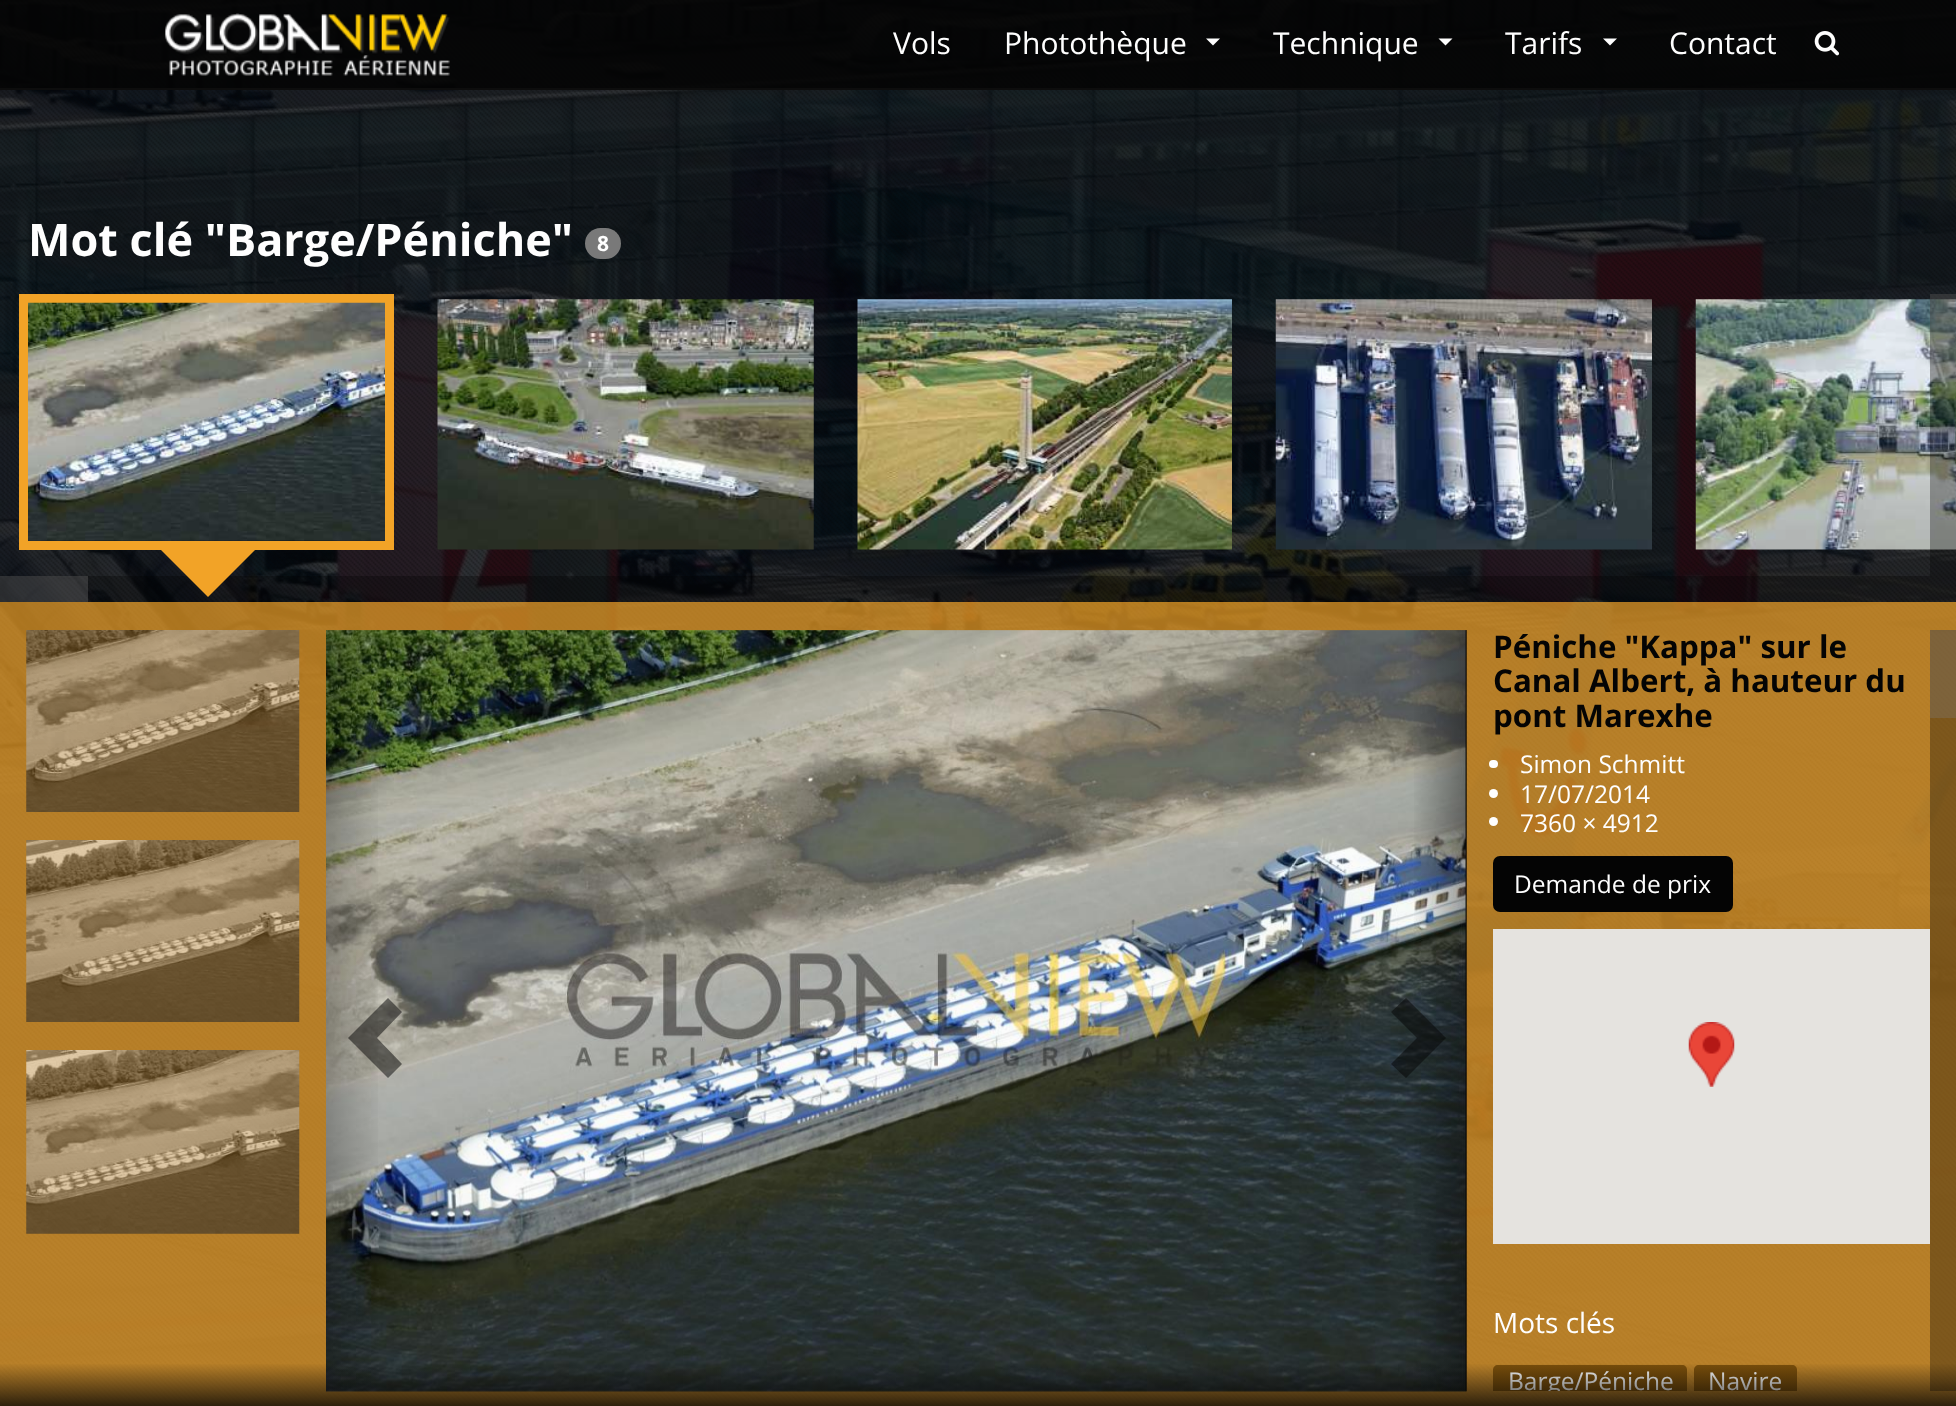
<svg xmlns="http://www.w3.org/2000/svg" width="1956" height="1406">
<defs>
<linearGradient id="g1" gradientUnits="userSpaceOnUse" x1="326" y1="1011" x2="383" y2="1011"><stop offset="0" stop-color="#040404" stop-opacity="0.25"/><stop offset="1" stop-color="#040404" stop-opacity="0"/></linearGradient>
<linearGradient id="g2" gradientUnits="userSpaceOnUse" x1="1411" y1="1011" x2="1467" y2="1011"><stop offset="0" stop-color="#040404" stop-opacity="0"/><stop offset="1" stop-color="#040404" stop-opacity="0.4"/></linearGradient>
<clipPath id="clip1"><rect x="1467" y="630" width="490" height="761"/></clipPath>
<linearGradient id="g3" gradientUnits="userSpaceOnUse" x1="978" y1="1363" x2="978" y2="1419"><stop offset="0" stop-color="#040404" stop-opacity="0"/><stop offset="1" stop-color="#040404"/></linearGradient>
</defs>
<rect width="100%" height="100%" fill="#fff"/>
<image x="0" y="0" width="1956" height="1406" href="media/1.png"/>
<image x="0" y="0" width="1956" height="1406" href="media/2.png"/>
<rect width="1956" height="88" fill="#040404e6"/>
<rect y="88" width="1956" height="2" fill="#0d0d0d"/>
<image x="165" y="13" width="285" height="63" href="media/3.png"/>
<text x="893" y="54" style="font-family:Open Sans;font-size:30px;fill:#fefefe">Vols</text>
<text x="1004" y="54" style="font-family:Open Sans;font-size:30px;fill:#fefefe">Photothèque</text>
<path d="M1206 38.5h14l-7 7z" fill="#fefefe"/>
<text x="1273" y="54" style="font-family:Open Sans;font-size:30px;fill:#fefefe">Technique</text>
<path d="M1438.5 38.5h14l-7 7z" fill="#fefefe"/>
<text x="1505" y="54" style="font-family:Open Sans;font-size:30px;fill:#fefefe">Tarifs</text>
<path d="M1603 38.5h14l-7 7z" fill="#fefefe"/>
<text x="1669" y="54" style="font-family:Open Sans;font-size:30px;fill:#fefefe">Contact</text>
<image x="1814" y="31" width="26" height="25" href="media/4.png"/>
<text x="28" y="256" style="font-family:Open Sans;font-size:45px;font-weight:bold;fill:#fefefe">Mot clé "Barge/Péniche"</text>
<rect x="585" y="228" width="36" height="31" rx="15.5" fill="#797979"/>
<text x="597" y="251" style="font-family:Open Sans;font-size:21px;font-weight:bold;fill:#fefefe">8</text>
<rect x="23.5" y="298.5" width="366" height="247" fill="none" stroke="#f2a327" stroke-width="9"/>
<image x="28" y="302" width="357" height="239" href="media/5.png"/>
<rect y="576" width="1930" height="26" fill="#0404044f"/>
<path d="M159 548h98l-49 49z" fill="#f2a327"/>
<image x="437" y="299" width="377" height="251" href="media/6.png"/>
<image x="857" y="299" width="375" height="251" href="media/7.png"/>
<image x="1275" y="299" width="377" height="251" href="media/8.png"/>
<image x="1695" y="299" width="261" height="251" href="media/9.png"/>
<rect y="602" width="1956" height="804" fill="#f2a327b3"/>
<image x="26" y="630" width="274" height="182" href="media/10.png"/>
<image x="26" y="840" width="274" height="182" href="media/11.png"/>
<image x="26" y="1050" width="274" height="184" href="media/12.png"/>
<image x="326" y="630" width="1141" height="762" href="media/13.png"/>
<rect x="326" y="630" width="52" height="761" fill="url(#g1)"/>
<path d="M402 1012l-25 26l25 26l-14 14l-40-40l40-40z" fill="#04040480"/>
<rect x="1414" y="630" width="53" height="761" fill="url(#g2)"/>
<path d="M1446 1038l-40 40l-15-14l26-26l-26-26l15-14z" fill="#04040480"/>
<text x="1493" y="658" style="font-family:Open Sans;font-size:31.3px;font-weight:bold;fill:#040404">Péniche "Kappa" sur le</text>
<text x="1493" y="692" style="font-family:Open Sans;font-size:31.3px;font-weight:bold;fill:#040404">Canal Albert, à hauteur du</text>
<text x="1493" y="727" style="font-family:Open Sans;font-size:31.3px;font-weight:bold;fill:#040404">pont Marexhe</text>
<rect x="1489" y="760" width="9" height="8" rx="4" fill="#fefefe"/>
<text x="1520" y="773" style="font-family:Open Sans;font-size:24.5px;fill:#fefefe">Simon Schmitt</text>
<circle cx="1493.5" cy="793.5" r="4.5" fill="#fefefe"/>
<text x="1520" y="803" style="font-family:Open Sans;font-size:24.5px;fill:#fefefe">17/07/2014</text>
<circle cx="1493.5" cy="821.5" r="4.5" fill="#fefefe"/>
<text x="1520" y="832" style="font-family:Open Sans;font-size:24.5px;fill:#fefefe">7360 × 4912</text>
<rect x="1493" y="856" width="240" height="56" rx="7" fill="#040404"/>
<text x="1514" y="893" style="font-family:Open Sans;font-size:24.5px;fill:#fefefe">Demande de prix</text>
<rect x="1493" y="929" width="437" height="315" fill="#e5e3df"/>
<image x="1688" y="1022" width="47" height="65" href="media/14.png"/>
<text x="1493" y="1333" style="font-family:Open Sans;font-size:28px;fill:#fefefe">Mots clés</text>
<path d="M1498 1365h184c3 0 5 2 5 5v21h-194v-21c0-3 2-5 5-5z" fill="#794e0b"/>
<g clip-path="url(#clip1)">
<text x="1508" y="1390" style="font-family:Open Sans;font-size:24.5px;fill:#fefefe">Barge/Péniche</text>
</g>
<path d="M1699 1365h93c3 0 5 2 5 5v21h-103v-21c0-3 2-5 5-5z" fill="#794e0b"/>
<text x="1708" y="1390" style="font-family:Open Sans;font-size:24.5px;fill:#fefefe">Navire</text>
<rect x="1930" y="630" width="26" height="761" fill="#04040452"/>
<rect y="1364" width="1956" height="42" fill="url(#g3)"/>
<rect x="1930" y="294" width="26" height="308" fill="#0404044f"/>
<rect x="1930" y="294" width="26" height="88" fill="#7e7d7d4f"/>
<rect y="576" width="88" height="26" fill="#7e7d7d4f"/>
<rect x="1930" y="630" width="26" height="88" fill="#7e7d7d52"/>
</svg>
